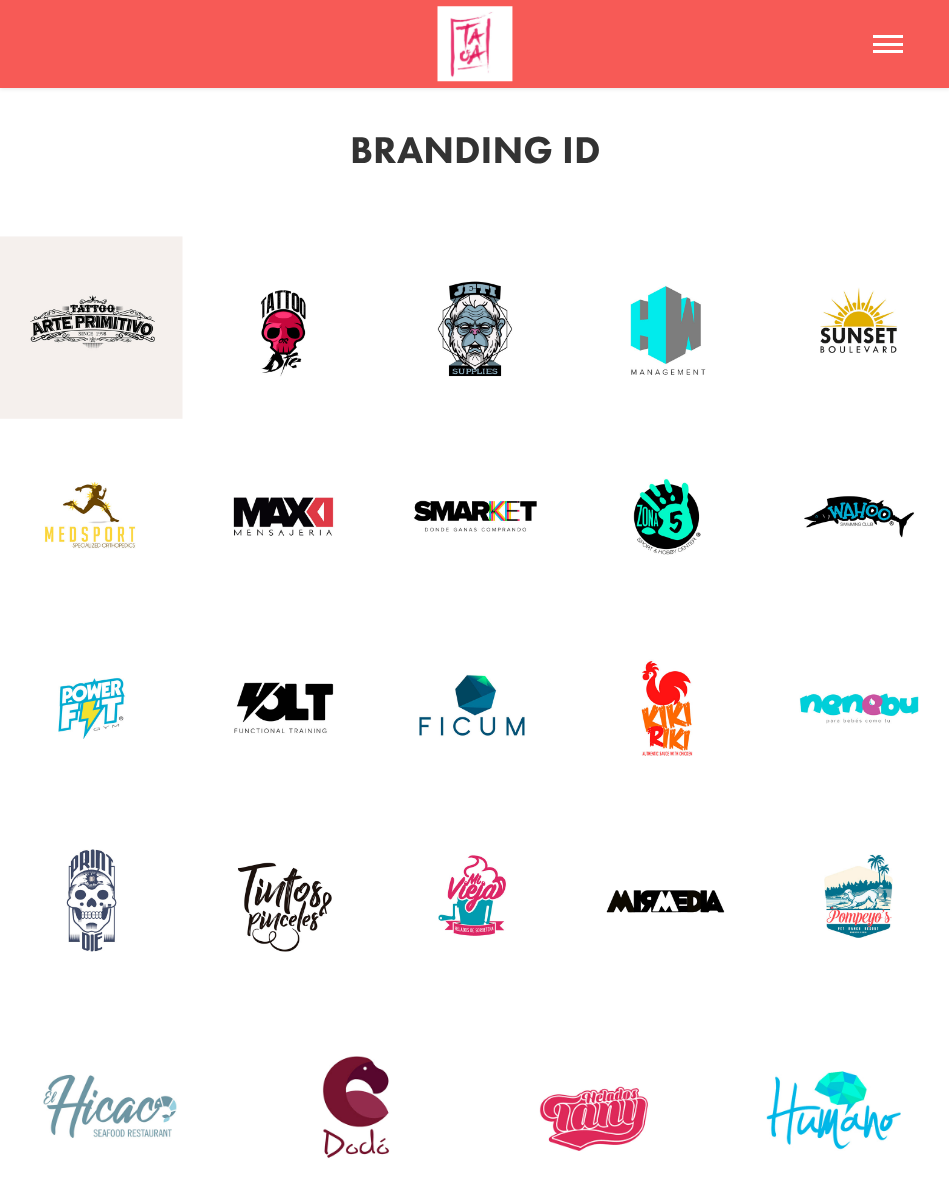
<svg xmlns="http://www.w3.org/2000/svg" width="949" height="1200">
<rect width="100%" height="100%" fill="#fff"/>
<rect y="1" width="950" height="88" fill="#0000001a" filter="blur(2px)"/>
<rect width="949" height="88" fill="#f75a56"/>
<image x="437" y="6" width="76" height="76" href="media/1.png"/>
<rect x="873" y="35" width="30" height="3" fill="#fff"/>
<rect x="873" y="43" width="30" height="3" fill="#fff"/>
<rect x="873" y="50" width="30" height="3" fill="#fff"/>
<text x="350" y="163" style="font-family:Futura PT;font-size:38.75px;font-weight:900;fill:#333">BRANDING ID</text>
<image x="0" y="236" width="183" height="183" href="media/2.png"/>
<image x="260" y="290" width="46" height="87" href="media/3.png"/>
<image x="437" y="281" width="76" height="96" href="media/4.png"/>
<image x="630" y="285" width="76" height="90" href="media/5.png"/>
<image x="820" y="287" width="78" height="66" href="media/6.png"/>
<image x="44" y="482" width="92" height="67" href="media/7.png"/>
<image x="233" y="497" width="102" height="39" href="media/8.png"/>
<image x="413" y="500" width="124" height="32" href="media/9.png"/>
<image x="633" y="478" width="68" height="77" href="media/10.png"/>
<image x="804" y="496" width="111" height="42" href="media/11.png"/>
<image x="58" y="676" width="68" height="63" href="media/12.png"/>
<image x="234" y="682" width="100" height="52" href="media/13.png"/>
<image x="419" y="674" width="106" height="63" href="media/14.png"/>
<image x="641" y="659" width="52" height="97" href="media/15.png"/>
<image x="799" y="693" width="120" height="31" href="media/16.png"/>
<image x="66" y="849" width="51" height="103" href="media/17.png"/>
<image x="237" y="862" width="95" height="90" href="media/18.png"/>
<image x="438" y="854" width="69" height="82" href="media/19.png"/>
<image x="606" y="890" width="119" height="23" href="media/20.png"/>
<image x="824" y="854" width="69" height="84" href="media/21.png"/>
<image x="43" y="1074" width="134" height="65" href="media/22.png"/>
<image x="322" y="1056" width="68" height="103" href="media/23.png"/>
<image x="539" y="1086" width="110" height="65" href="media/24.png"/>
<image x="766" y="1071" width="135" height="80" href="media/25.png"/>
</svg>
